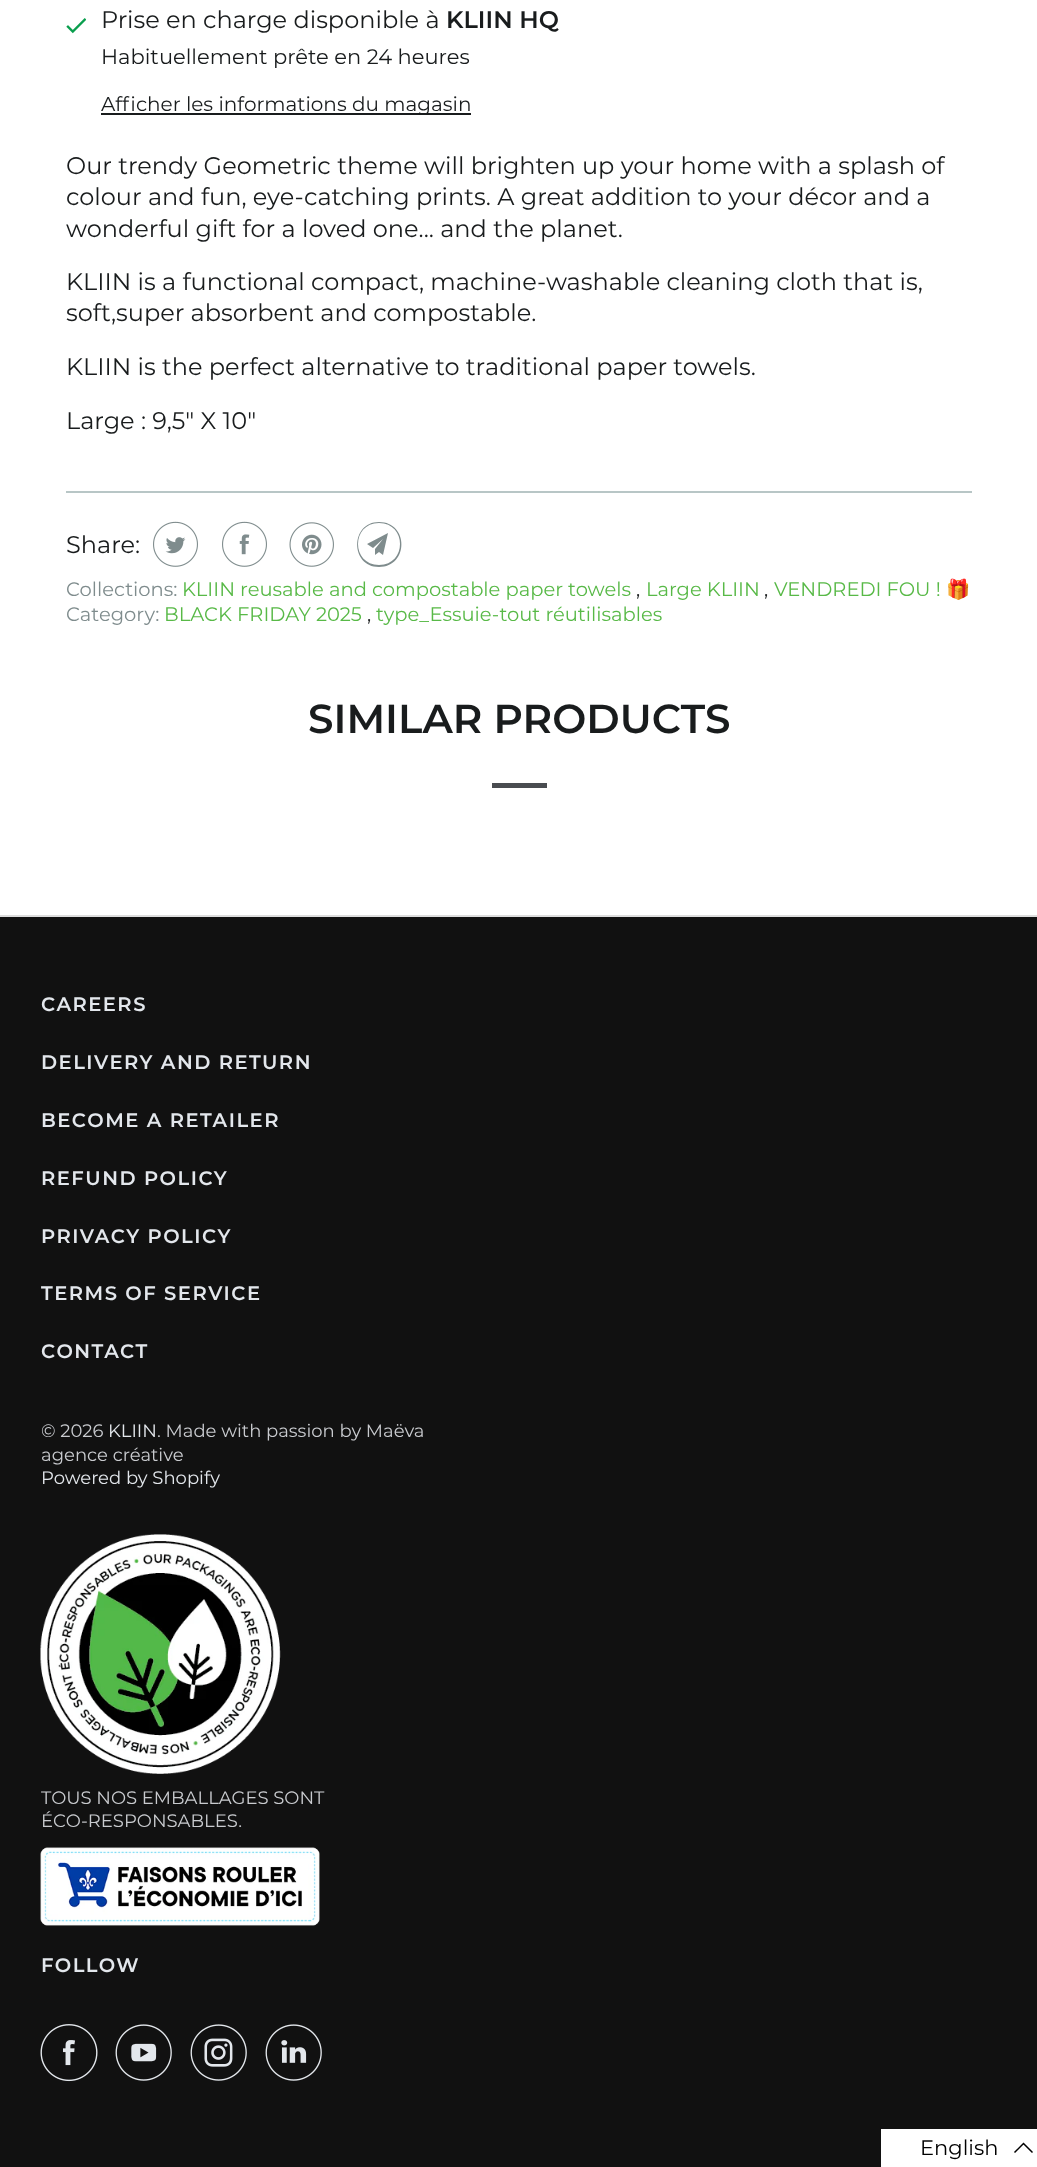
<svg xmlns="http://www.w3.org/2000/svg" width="1037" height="2167">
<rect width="100%" height="100%" fill="#fff"/>
<image x="66" y="18" width="20" height="16" href="media/1.png"/>
<text x="101" y="28" style="font-family:Montserrat;font-size:24px;fill:#191c1d">Prise en charge disponible à</text>
<text x="446" y="28" style="font-family:Montserrat;font-size:24px;font-weight:600;fill:#191c1d">KLIIN HQ</text>
<text x="101" y="64" style="font-family:Montserrat;font-size:21px;fill:#191c1d">Habituellement prête en 24 heures</text>
<rect x="101" y="113" width="370" height="2" fill="#191c1d"/>
<text x="101" y="111" style="font-family:Montserrat;font-size:20px;fill:#191c1d">Afficher les informations du magasin</text>
<text x="66" y="174" style="font-family:Montserrat;font-size:24px;fill:#191c1d">Our trendy Geometric theme will brighten up your home with a splash of</text>
<text x="66" y="205" style="font-family:Montserrat;font-size:24px;fill:#191c1d">colour and fun, eye-catching prints. A great addition to your décor and a</text>
<text x="66" y="237" style="font-family:Montserrat;font-size:24px;fill:#191c1d">wonderful gift for a loved one... and the planet.</text>
<text x="66" y="290" style="font-family:Montserrat;font-size:24px;fill:#191c1d">KLIIN is a functional compact, machine-washable cleaning cloth that is,</text>
<text x="66" y="321" style="font-family:Montserrat;font-size:24px;fill:#191c1d">soft,super absorbent and compostable.</text>
<text x="66" y="375" style="font-family:Montserrat;font-size:24px;fill:#191c1d">KLIIN is the perfect alternative to traditional paper towels.</text>
<text x="66" y="429" style="font-family:Montserrat;font-size:24px;fill:#191c1d">Large : 9,5" X 10"</text>
<rect x="66" y="491" width="906" height="2" fill="#b8c6c6"/>
<text x="66" y="553" style="font-family:Montserrat;font-size:24px;fill:#191c1d">Share:</text>
<image x="153" y="521" width="45" height="46" href="media/2.png"/>
<image x="222" y="521" width="45" height="46" href="media/3.png"/>
<image x="289" y="522" width="45" height="45" href="media/4.png"/>
<path d="M383 555l-4-3l-4 3v-6l8-10l-10 9l-6-4l21-11zm-4-32c-28 0-28 42 0 42c28 0 28-42 0-42zm0 44c-29 0-29-45 0-45c30 0 30 45 0 45z" fill="#7f8c8d"/>
<text x="66" y="596" style="font-family:Montserrat;font-size:19.5px;fill:#7f8c8d">Collections:</text>
<text x="182" y="596" style="font-family:Montserrat;font-size:19.5px;fill:#58b947">KLIIN reusable and compostable paper towels</text>
<text x="636" y="596" style="font-family:Montserrat;font-size:19.5px;fill:#191c1d">,</text>
<text x="646" y="596" style="font-family:Montserrat;font-size:19.5px;fill:#58b947">Large KLIIN</text>
<text x="764" y="596" style="font-family:Montserrat;font-size:19.5px;fill:#191c1d">,</text>
<text x="774" y="596" style="font-family:Montserrat;font-size:19.5px;fill:#58b947">VENDREDI FOU !</text>
<text x="946" y="596" style="font-family:Noto Color Emoji;font-size:19.5px;fill:#58b947">🎁</text>
<text x="66" y="621" style="font-family:Montserrat;font-size:19.5px;fill:#7f8c8d">Category:</text>
<text x="164" y="621" style="font-family:Montserrat;font-size:19.5px;fill:#58b947">BLACK FRIDAY 2025</text>
<text x="367" y="621" style="font-family:Montserrat;font-size:19.5px;fill:#191c1d">,</text>
<text x="376" y="621" style="font-family:Montserrat;font-size:19.5px;fill:#58b947">type_Essuie-tout réutilisables</text>
<text x="308" y="733" style="font-family:Montserrat;font-size:40.5px;font-weight:600;fill:#191c1d">SIMILAR PRODUCTS</text>
<rect x="492" y="783" width="55" height="5" fill="#494c50"/>
<rect y="917" width="1037" height="1250" fill="#111"/>
<rect y="915" width="1037" height="2" fill="#ddd"/>
<text x="41" y="1011" style="font-family:Montserrat;font-size:19.5px;font-weight:600;letter-spacing:1.5px;fill:#e3e7ec">CAREERS</text>
<text x="41" y="1069" style="font-family:Montserrat;font-size:19.5px;font-weight:600;letter-spacing:1.5px;fill:#e3e7ec">DELIVERY AND RETURN</text>
<text x="41" y="1127" style="font-family:Montserrat;font-size:19.5px;font-weight:600;letter-spacing:1.5px;fill:#e3e7ec">BECOME A RETAILER</text>
<text x="41" y="1185" style="font-family:Montserrat;font-size:19.5px;font-weight:600;letter-spacing:1.5px;fill:#e3e7ec">REFUND POLICY</text>
<text x="41" y="1243" style="font-family:Montserrat;font-size:19.5px;font-weight:600;letter-spacing:1.5px;fill:#e3e7ec">PRIVACY POLICY</text>
<text x="41" y="1300" style="font-family:Montserrat;font-size:19.5px;font-weight:600;letter-spacing:1.5px;fill:#e3e7ec">TERMS OF SERVICE</text>
<text x="41" y="1358" style="font-family:Montserrat;font-size:19.5px;font-weight:600;letter-spacing:1.5px;fill:#e3e7ec">CONTACT</text>
<text x="41" y="1437" style="font-family:Montserrat;font-size:18px;fill:#c9cbcf">© 2026</text>
<text x="108" y="1437" style="font-family:Montserrat;font-size:18px;fill:#e3e7ec">KLIIN</text>
<text x="157" y="1437" style="font-family:Montserrat;font-size:18px;fill:#c9cbcf">. Made with passion by Maëva</text>
<text x="41" y="1461" style="font-family:Montserrat;font-size:18px;fill:#c9cbcf">agence créative</text>
<text x="41" y="1484" style="font-family:Montserrat;font-size:18px;fill:#e3e7ec">Powered by Shopify</text>
<image x="40" y="1534" width="241" height="240" href="media/5.png"/>
<text x="41" y="1804" style="font-family:Montserrat;font-size:18px;fill:#c9cbcf">TOUS NOS EMBALLAGES SONT</text>
<text x="41" y="1827" style="font-family:Montserrat;font-size:18px;fill:#c9cbcf">ÉCO-RESPONSABLES.</text>
<image x="40" y="1847" width="280" height="79" href="media/6.png"/>
<text x="41" y="1972" style="font-family:Montserrat;font-size:19.5px;font-weight:600;letter-spacing:1.5px;fill:#e3e7ec">FOLLOW</text>
<image x="40" y="2024" width="58" height="58" href="media/7.png"/>
<image x="115" y="2024" width="57" height="57" href="media/8.png"/>
<image x="190" y="2024" width="57" height="57" href="media/9.png"/>
<image x="265" y="2024" width="57" height="57" href="media/10.png"/>
<rect x="881" y="2129" width="156" height="38" fill="#fff"/>
<text x="920" y="2155" style="font-family:Montserrat;font-size:21px;fill:#000">English</text>
<path d="M1032.5 2152.5l-9-9l-9 9" fill="none" stroke="#000" stroke-width="1.5"/>
</svg>
